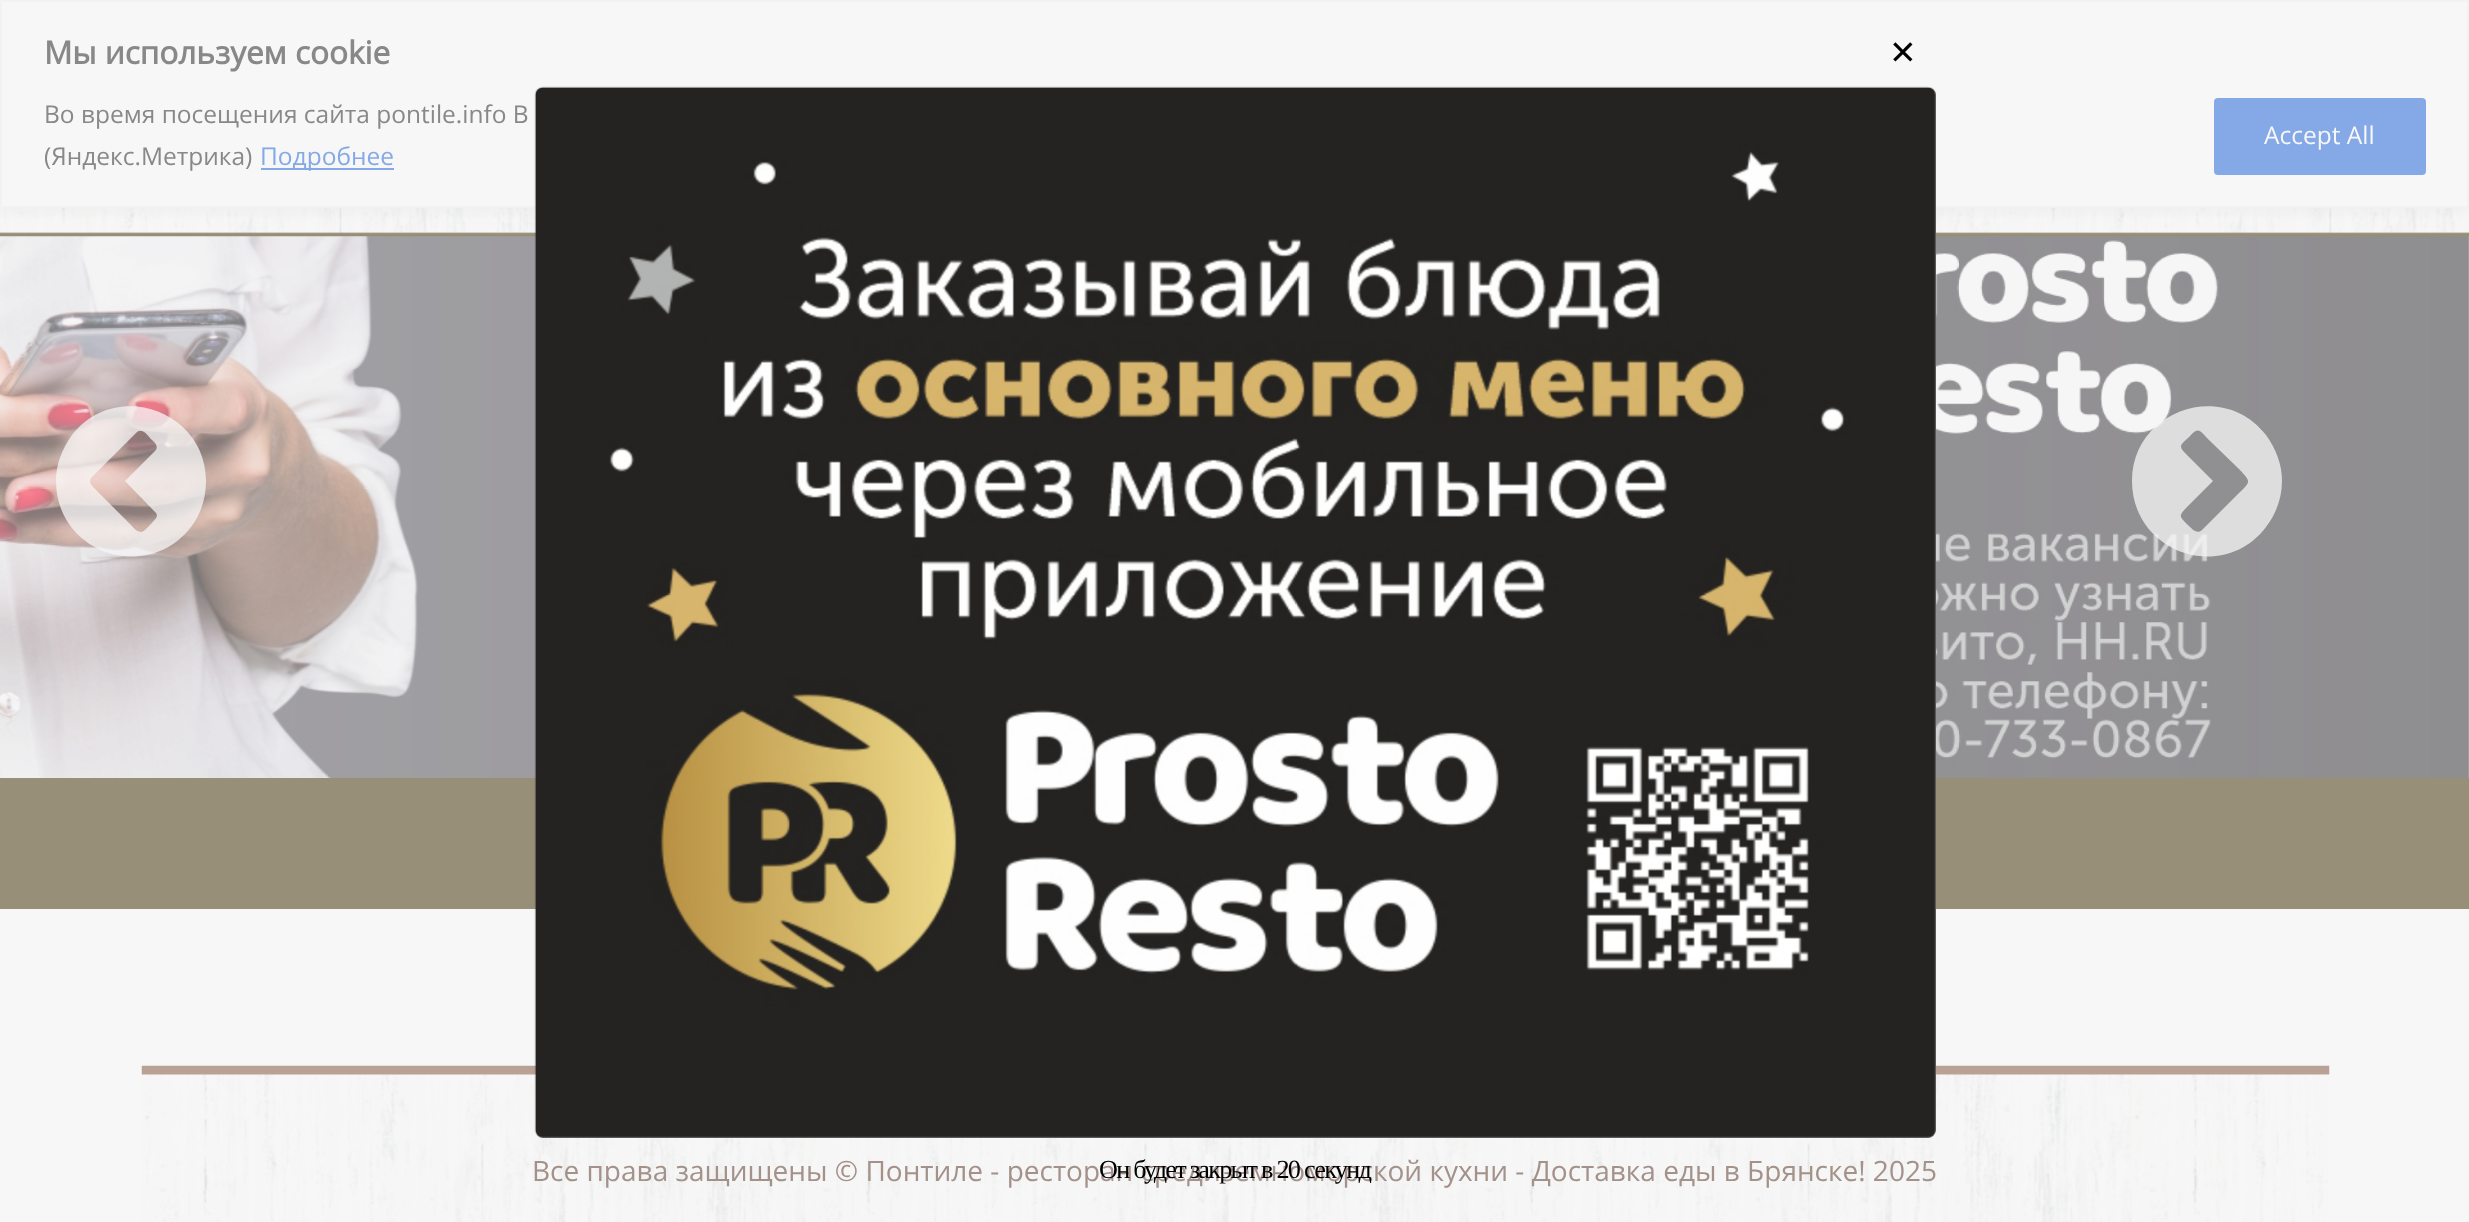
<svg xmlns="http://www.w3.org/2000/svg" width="2469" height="1222">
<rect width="100%" height="100%" fill="#f7f7f7"/>
<image x="0" y="236" width="2469" height="542" href="media/3.png"/>
<image x="0" y="208" width="2469" height="29" href="media/2.png"/>
<rect y="-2" width="2469" height="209" fill="#cecdcd4d" filter="blur(9px)"/>
<rect x="1" y="1" width="2467" height="206" fill="#f7f7f7" stroke="#f2f2f2" stroke-width="2"/>
<text x="44" y="64" style="font-family:Open Sans;font-size:31.5px;font-weight:bold;fill:#888">Мы используем cookie</text>
<text x="44" y="123" style="font-family:Open Sans;font-size:24.5px;fill:#888">Во время посещения сайта pontile.info В</text>
<text x="44" y="165" style="font-family:Open Sans;font-size:24.5px;fill:#888">(Яндекс.Метрика)</text>
<rect x="261" y="168" width="133" height="2" fill="#84a9e6"/>
<text x="260" y="165" style="font-family:Open Sans;font-size:24.5px;fill:#84a9e6">Подробнее</text>
<rect x="2216" y="100" width="208" height="73" rx="2" fill="#84a9e6" stroke="#84a9e6" stroke-width="4"/>
<text x="2264" y="144" style="font-family:Open Sans;font-size:24.5px;fill:#f7f7f7">Accept All</text>
<rect y="778" width="2469" height="131" fill="#988f78"/>
<image x="141" y="1065" width="2189" height="157" href="media/4.png"/>
<rect x="536" y="88" width="1400" height="1050" rx="7" fill="#fff"/>
<image x="534" y="86" width="1402" height="1052" href="media/1.png"/>
<text x="1889" y="64" style="font-family:DejaVu Sans;font-size:33px;fill:#000">✕</text>
<text x="532" y="1181" style="font-family:Open Sans;font-size:28px;fill:#a3918a">Все права защищены © Понтиле - ресторан средиземноморской кухни - Доставка еды в Брянске! 2025</text>
<text x="1099" y="1178" style="font-family:Liberation Serif;font-size:26.25px;letter-spacing:-1.75px;fill:#000">Он будет закрыт в 20 секунд</text>
<path d="M145 530c-6 6-13-4-16-7l-30-30c-3-4-13-10-7-16l45-45c5-4 10 2 13 6c3 3 10 8 5 13l-30 30l31 32c3 4-2 7-4 10zm61-49c0-71-91-102-134-46c-10 14-16 29-16 46c0 72 91 103 135 46c10-13 15-29 15-46z" fill="#f7f7f7bf"/>
<path d="M2202 530c-5 5-11-2-14-5c-9-9-10-9 0-19l25-25l-25-25c-11-11-8-10 2-20c9-10 10-5 19 4l30 29c12 13 12 12 0 24zm80-49c0-17-6-32-16-46c-43-56-134-25-134 46c0 72 91 103 134 46c10-13 16-29 16-46z" fill="#f7f7f7bf"/>
</svg>
